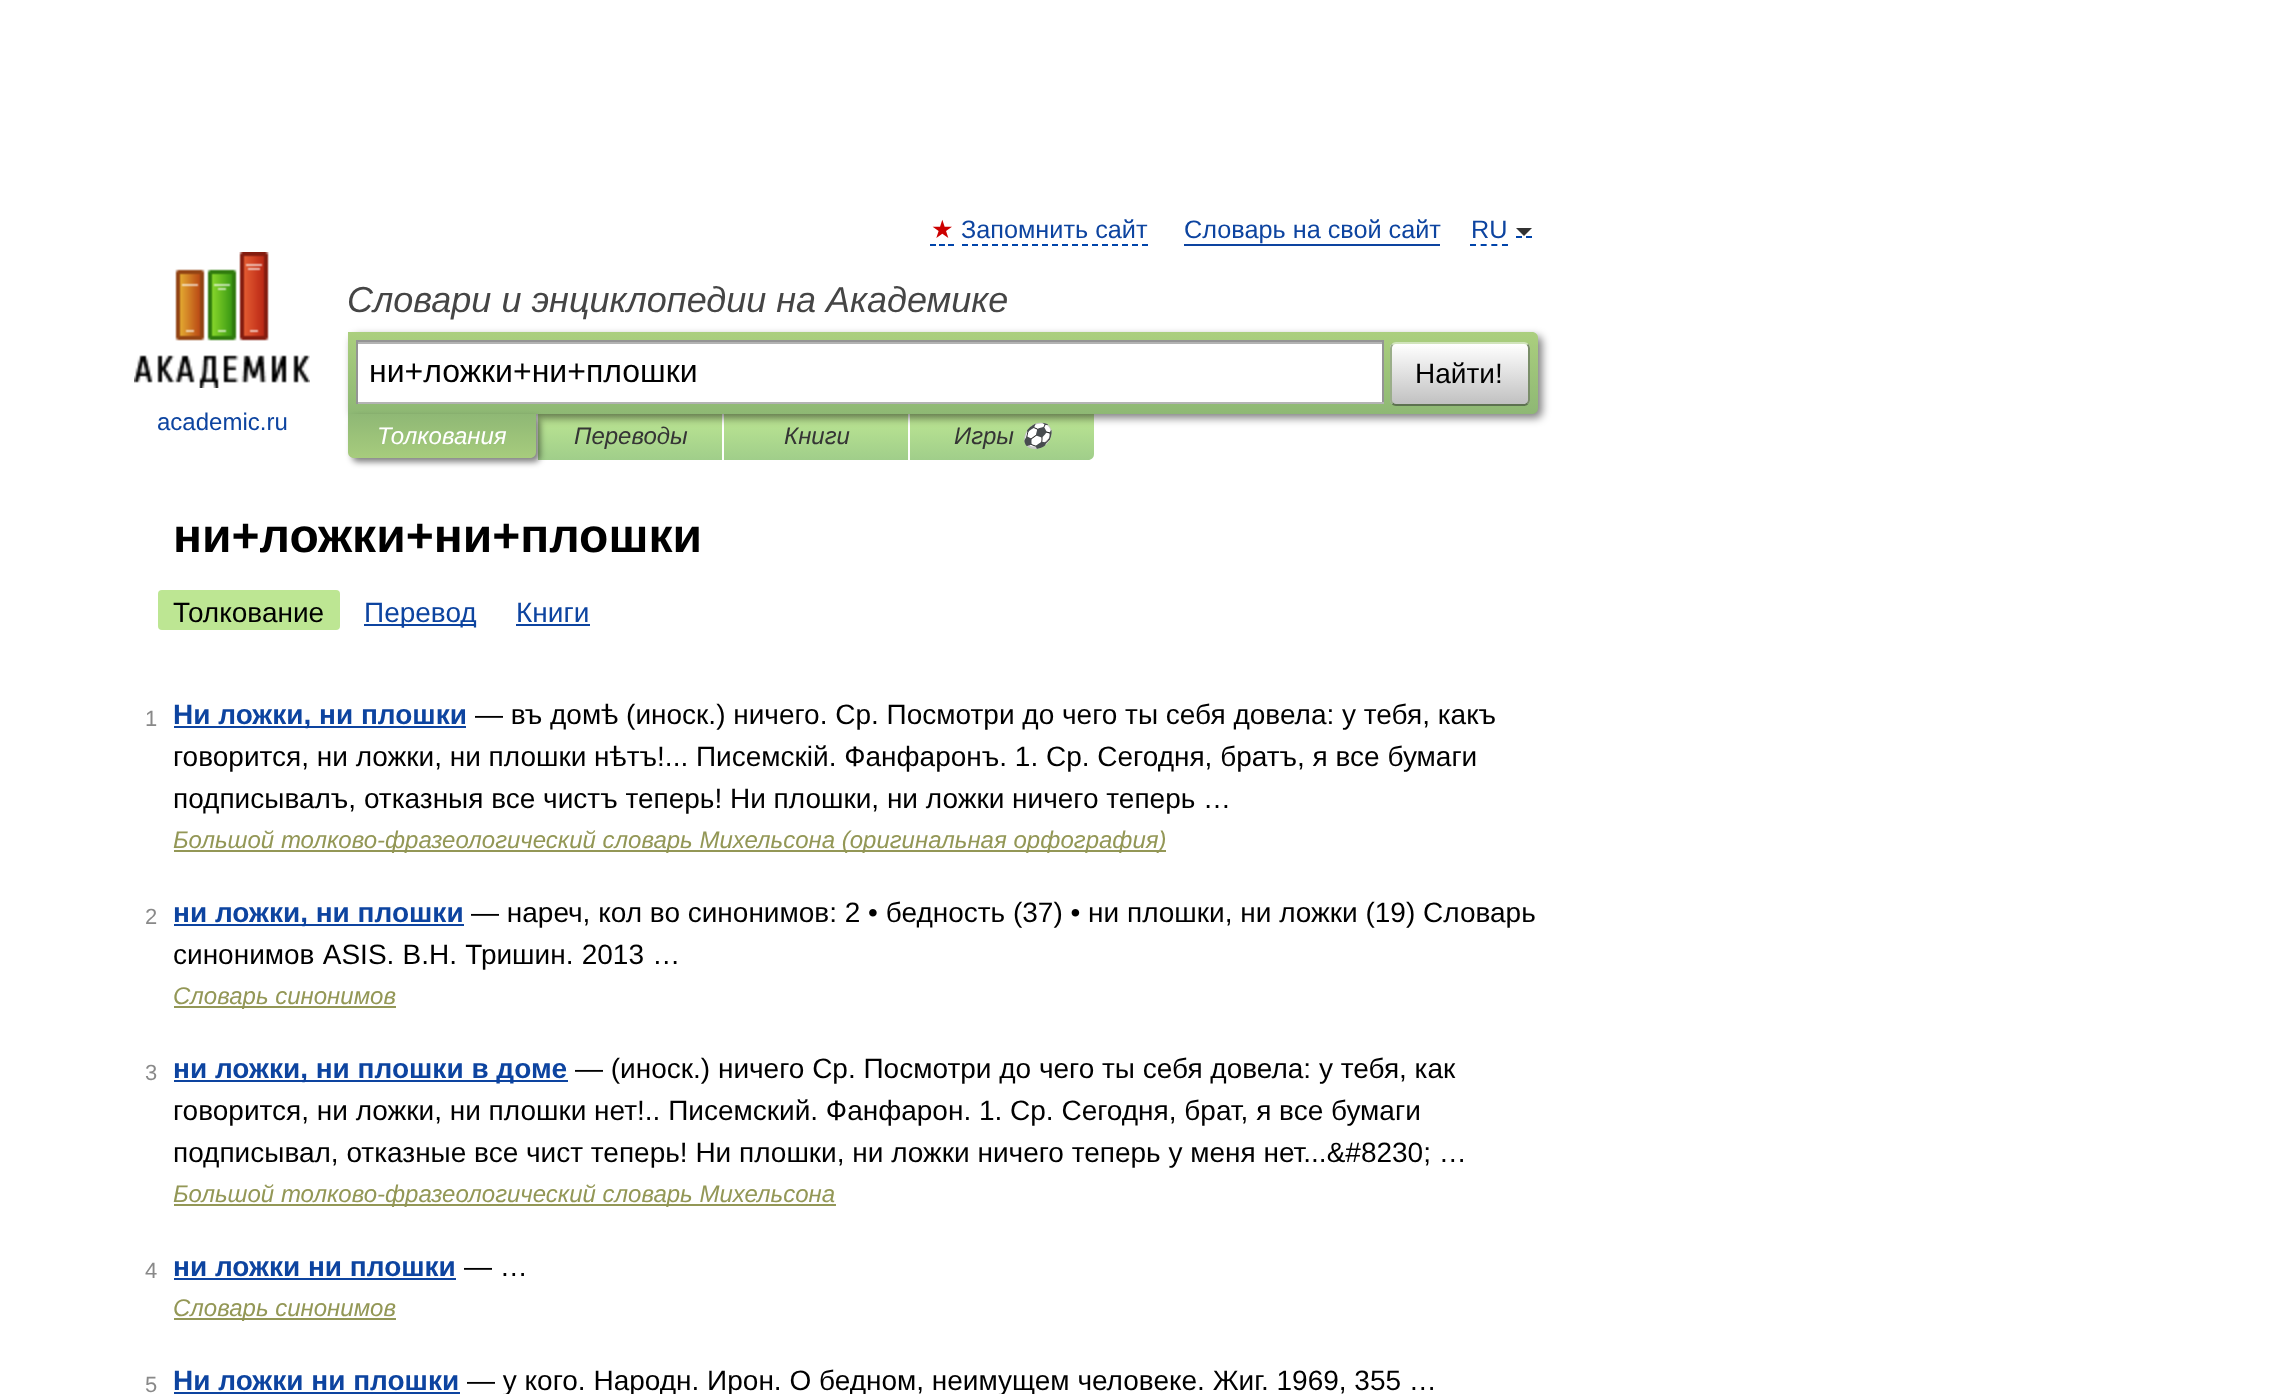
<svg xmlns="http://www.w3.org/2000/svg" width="2294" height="1394">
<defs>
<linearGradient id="g1" gradientUnits="userSpaceOnUse" x1="630" y1="414" x2="630" y2="460"><stop offset="0" stop-color="#bde693"/><stop offset="1" stop-color="#a0ce8a"/></linearGradient>
<linearGradient id="g2" gradientUnits="userSpaceOnUse" x1="816" y1="414" x2="816" y2="460"><stop offset="0" stop-color="#bde693"/><stop offset="1" stop-color="#a0ce8a"/></linearGradient>
<linearGradient id="g3" gradientUnits="userSpaceOnUse" x1="1002" y1="414" x2="1002" y2="460"><stop offset="0" stop-color="#bde693"/><stop offset="1" stop-color="#a0ce8a"/></linearGradient>
<linearGradient id="g4" gradientUnits="userSpaceOnUse" x1="943" y1="332" x2="943" y2="414"><stop offset="0" stop-color="#abcf7e"/><stop offset="1" stop-color="#8eb874"/></linearGradient>
<clipPath id="clip1"><rect x="1390" y="342" width="140" height="64" rx="6"/></clipPath>
<linearGradient id="g5" gradientUnits="userSpaceOnUse" x1="1460" y1="344" x2="1460" y2="404"><stop offset="0" stop-color="#fff"/><stop offset="1" stop-color="#c1c1c1"/></linearGradient>
<linearGradient id="g6" gradientUnits="userSpaceOnUse" x1="442" y1="414" x2="442" y2="458"><stop offset="0" stop-color="#8fb875"/><stop offset="1" stop-color="#a7cc7d"/></linearGradient>
</defs>
<rect width="100%" height="100%" fill="#fff"/>
<text x="931" y="238" style="font-family:DejaVu Sans;font-size:25.25px;fill:#c00">★</text>
<path d="M930 245h6m3 0h6m3 0h6" fill="none" stroke="#04a" stroke-width="2"/>
<text x="961" y="238" style="font-family:Liberation Sans;font-size:25.25px;fill:#0d44a0">Запомнить сайт</text>
<path d="M962 245h186" fill="none" stroke="#04a" stroke-width="2" stroke-dasharray="6 4"/>
<text x="1184" y="238" style="font-family:Liberation Sans;font-size:25.25px;fill:#0d44a0">Словарь на свой сайт</text>
<rect x="1184" y="244" width="256" height="2" fill="#0d44a0"/>
<path d="M1470 245h38" fill="none" stroke="#04a" stroke-width="2" stroke-dasharray="6 4.66"/>
<path d="M1516 237h6m4 0h6" fill="none" stroke="#04a" stroke-width="2"/>
<text x="1471" y="238" style="font-family:Liberation Sans;font-size:25.25px;fill:#0d44a0">RU</text>
<path d="M1516 228h16l-8 8z" fill="#333"/>
<text x="347" y="312" style="font-family:Liberation Sans;font-size:36px;font-style:italic;fill:#454545">Словари и энциклопедии на Академике</text>
<rect x="538" y="414" width="184" height="46" fill="url(#g1)"/>
<rect x="724" y="414" width="184" height="46" fill="url(#g2)"/>
<path d="M910 414h184v40c0 3.5-2.5 6-6 6h-178z" fill="url(#g3)"/>
<rect x="352" y="336" width="1190" height="82" rx="6" fill="#00000080" filter="blur(4px)"/>
<path d="M348 332h1184c3.5 0 6 2.5 6 6v70c0 3.5-2.5 6-6 6h-1184z" fill="url(#g4)"/>
<rect x="358" y="344" width="1024" height="58" fill="#fff"/>
<rect x="358" y="342" width="1024" height="2" fill="#b3b3b3"/>
<rect x="356" y="340" width="1028" height="2" fill="#949494"/>
<rect x="1382" y="340" width="2" height="64" fill="#949494"/>
<rect x="356" y="402" width="1028" height="2" fill="#b4b4b4"/>
<rect x="356" y="340" width="2" height="64" fill="#949494"/>
<text x="369" y="382" style="font-family:Liberation Sans;font-size:32px;fill:#000">ни+ложки+ни+плошки</text>
<g clip-path="url(#clip1)">
<rect x="1390" y="344" width="140" height="60" fill="url(#g5)"/>
</g>
<path d="M1392.5 344.5c1-1 2-1.5 3.5-1.5h128c1.5 0 2.5 .5 3.5 1.5" fill="none" stroke="#d1e4bc" stroke-width="2"/>
<path d="M1527.5 344.5c1 1 1.5 2 1.5 3.5v52c0 1.5-.5 2.5-1.5 3.5" fill="none" stroke="#7a8e69" stroke-width="2"/>
<path d="M1527.5 403.5c-1 1-2 1.5-3.5 1.5h-128c-1.5 0-2.5-.5-3.5-1.5" fill="none" stroke="#5d7250" stroke-width="2"/>
<path d="M1392.5 403.5c-1-1-1.5-2-1.5-3.5v-52c0-1.5 .5-2.5 1.5-3.5" fill="none" stroke="#9aae89" stroke-width="2"/>
<text x="1415" y="383" style="font-family:Liberation Sans;font-size:28px;fill:#000">Найти!</text>
<image x="134" y="252" width="176" height="136" href="media/1.png"/>
<text x="157" y="430" style="font-family:Liberation Sans;font-size:24px;fill:#0d44a0">academic.ru</text>
<rect x="352" y="418" width="188" height="44" rx="6" fill="#00000080" filter="blur(3px)"/>
<path d="M348 414h188v38c0 3.5-2.5 6-6 6h-176c-3.5 0-6-2.5-6-6z" fill="url(#g6)"/>
<text x="377" y="444" style="font-family:Liberation Sans;font-size:24px;font-style:italic;fill:#fff">Толкования</text>
<text x="574" y="444" style="font-family:Liberation Sans;font-size:24px;font-style:italic;fill:#353535">Переводы</text>
<text x="784" y="444" style="font-family:Liberation Sans;font-size:24px;font-style:italic;fill:#353535">Книги</text>
<text x="954" y="444" style="font-family:Liberation Sans;font-size:24px;font-style:italic;fill:#353535">Игры</text>
<text x="1021" y="444" style="font-family:Noto Color Emoji;font-size:24px;font-style:italic;fill:#353535">⚽</text>
<text x="173" y="552" style="font-family:Liberation Sans;font-size:48px;font-weight:bold;fill:#000">ни+ложки+ни+плошки</text>
<rect x="158" y="590" width="182" height="40" rx="4" fill="#bde693"/>
<text x="173" y="622" style="font-family:Liberation Sans;font-size:28px;fill:#000">Толкование</text>
<rect x="364" y="624" width="112" height="2" fill="#0d44a0"/>
<text x="364" y="622" style="font-family:Liberation Sans;font-size:28px;fill:#0d44a0">Перевод</text>
<text x="516" y="622" style="font-family:Liberation Sans;font-size:28px;fill:#0d44a0">Книги</text>
<rect x="516" y="624" width="74" height="2" fill="#0d44a0"/>
<text x="145" y="726" style="font-family:Liberation Sans;font-size:22px;fill:#898989">1</text>
<rect x="174" y="726" width="292" height="2" fill="#0d44a0"/>
<text x="173" y="724" style="font-family:Liberation Sans;font-size:28px;font-weight:bold;fill:#0d44a0">Ни ложки, ни плошки</text>
<text x="475" y="724" style="font-family:Liberation Sans;font-size:28px;fill:#000">— въ домѣ (иноск.) ничего. Ср. Посмотри до чего ты себя довела: у тебя, какъ</text>
<text x="173" y="766" style="font-family:Liberation Sans;font-size:28px;fill:#000">говорится, ни ложки, ни плошки нѣтъ!... Писемскій. Фанфаронъ. 1. Ср. Сегодня, братъ, я все бумаги</text>
<text x="173" y="808" style="font-family:Liberation Sans;font-size:28px;fill:#000">подписывалъ, отказныя все чистъ теперь! Ни плошки, ни ложки ничего теперь …</text>
<rect x="174" y="850" width="992" height="2" fill="#939756"/>
<text x="173" y="848" style="font-family:Liberation Sans;font-size:24px;font-style:italic;fill:#939756">Большой толково-фразеологический словарь Михельсона (оригинальная орфография)</text>
<text x="145" y="924" style="font-family:Liberation Sans;font-size:22px;fill:#898989">2</text>
<rect x="174" y="924" width="290" height="2" fill="#0d44a0"/>
<text x="173" y="922" style="font-family:Liberation Sans;font-size:28px;font-weight:bold;fill:#0d44a0">ни ложки, ни плошки</text>
<text x="471" y="922" style="font-family:Liberation Sans;font-size:28px;fill:#000">— нареч, кол во синонимов: 2 • бедность (37) • ни плошки, ни ложки (19) Словарь</text>
<text x="173" y="964" word-spacing="0.5" style="font-family:Liberation Sans;font-size:28px;fill:#000">синонимов ASIS. В.Н. Тришин. 2013 …</text>
<rect x="174" y="1006" width="222" height="2" fill="#939756"/>
<text x="173" y="1004" style="font-family:Liberation Sans;font-size:24px;font-style:italic;fill:#939756">Словарь синонимов</text>
<text x="145" y="1080" style="font-family:Liberation Sans;font-size:22px;fill:#898989">3</text>
<rect x="174" y="1080" width="394" height="2" fill="#0d44a0"/>
<text x="173" y="1078" style="font-family:Liberation Sans;font-size:28px;font-weight:bold;fill:#0d44a0">ни ложки, ни плошки в доме</text>
<text x="575" y="1078" style="font-family:Liberation Sans;font-size:28px;fill:#000">— (иноск.) ничего Ср. Посмотри до чего ты себя довела: у тебя, как</text>
<text x="173" y="1120" style="font-family:Liberation Sans;font-size:28px;fill:#000">говорится, ни ложки, ни плошки нет!.. Писемский. Фанфарон. 1. Ср. Сегодня, брат, я все бумаги</text>
<text x="173" y="1162" style="font-family:Liberation Sans;font-size:28px;fill:#000">подписывал, отказные все чист теперь! Ни плошки, ни ложки ничего теперь у меня нет...&amp;#8230; …</text>
<rect x="174" y="1204" width="662" height="2" fill="#939756"/>
<text x="173" y="1202" style="font-family:Liberation Sans;font-size:24px;font-style:italic;fill:#939756">Большой толково-фразеологический словарь Михельсона</text>
<text x="145" y="1278" style="font-family:Liberation Sans;font-size:22px;fill:#898989">4</text>
<text x="173" y="1276" style="font-family:Liberation Sans;font-size:28px;font-weight:bold;fill:#0d44a0">ни ложки ни плошки</text>
<rect x="174" y="1278" width="282" height="2" fill="#0d44a0"/>
<text x="464" y="1276" style="font-family:Liberation Sans;font-size:28px;fill:#000">— …</text>
<rect x="174" y="1318" width="222" height="2" fill="#939756"/>
<text x="173" y="1316" style="font-family:Liberation Sans;font-size:24px;font-style:italic;fill:#939756">Словарь синонимов</text>
<text x="145" y="1392" style="font-family:Liberation Sans;font-size:22px;fill:#898989">5</text>
<text x="173" y="1390" style="font-family:Liberation Sans;font-size:28px;font-weight:bold;fill:#0d44a0">Ни ложки ни плошки</text>
<rect x="174" y="1392" width="286" height="2" fill="#0d44a0"/>
<text x="467" y="1390" style="font-family:Liberation Sans;font-size:28px;fill:#000">— у кого. Народн. Ирон. О бедном, неимущем человеке. Жиг. 1969, 355 …</text>
</svg>
